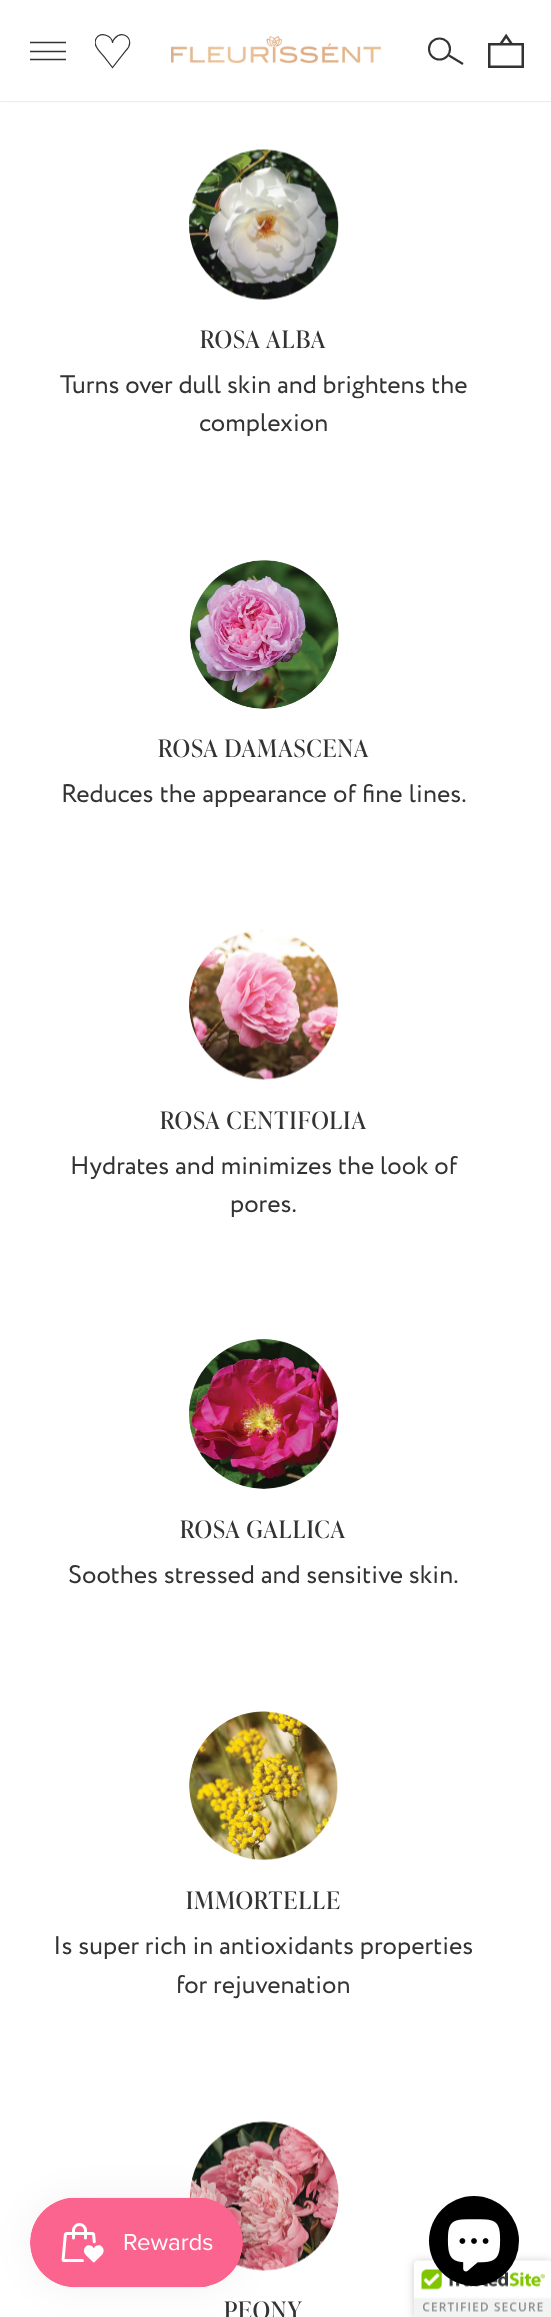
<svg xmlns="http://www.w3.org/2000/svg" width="551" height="2317">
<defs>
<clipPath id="clip1"><rect x="95" y="33" width="36" height="36"/></clipPath>
</defs>
<rect width="100%" height="100%" fill="#fff"/>
<rect width="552" height="101" fill="#00000033" filter="blur(1px)"/>
<rect width="551" height="101" fill="#fff"/>
<path d="M30 42.5h36m-36 9h36m-36 8h36" fill="none" stroke="#333" stroke-width="1.6"/>
<g clip-path="url(#clip1)">
<path d="M126 50.5c10-10-2.5-22-11-12.5c-1 1-2.5 3-2.5 5c-.5-7.5-11.5-11.5-16-5c-4.5 6.5 3 13.5 7 18l9 11.5z" fill="none" stroke="#333" stroke-width="1.2"/>
</g>
<image x="171" y="36" width="210" height="28" href="media/1.png"/>
<circle cx="439.5" cy="49" r="10.5" fill="none" stroke="#333" stroke-width="2.1"/>
<path d="M449 55.5l14 8.5" fill="none" stroke="#333" stroke-width="2.1"/>
<image x="488" y="33" width="36" height="35" href="media/2.png"/>
<image x="189" y="149" width="150" height="151" href="media/3.png"/>
<text x="200" y="348" style="font-family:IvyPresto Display;font-size:24px;letter-spacing:1.25px;fill:#333">ROSA ALBA</text>
<text x="60" y="393" style="font-family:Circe;font-size:25.5px;fill:#333">Turns over dull skin and brightens the</text>
<text x="199" y="431" style="font-family:Circe;font-size:25.5px;fill:#333">complexion</text>
<image x="189" y="560" width="150" height="149" href="media/4.png"/>
<text x="158" y="757" style="font-family:IvyPresto Display;font-size:24px;letter-spacing:1.25px;fill:#333">ROSA DAMASCENA</text>
<text x="61" y="802" word-spacing="0.5" style="font-family:Circe;font-size:25.5px;fill:#333">Reduces the appearance of fine lines.</text>
<image x="189" y="929" width="150" height="151" href="media/5.png"/>
<text x="160" y="1129" style="font-family:IvyPresto Display;font-size:24px;letter-spacing:1.25px;fill:#333">ROSA CENTIFOLIA</text>
<text x="70" y="1174" style="font-family:Circe;font-size:25.5px;fill:#333">Hydrates and minimizes the look of</text>
<text x="230" y="1212" style="font-family:Circe;font-size:25.5px;fill:#333">pores.</text>
<image x="189" y="1339" width="150" height="150" href="media/6.png"/>
<text x="180" y="1538" style="font-family:IvyPresto Display;font-size:24px;letter-spacing:1.25px;fill:#333">ROSA GALLICA</text>
<text x="68" y="1583" style="font-family:Circe;font-size:25.5px;fill:#333">Soothes stressed and sensitive skin.</text>
<image x="189" y="1711" width="149" height="150" href="media/7.png"/>
<text x="186" y="1909" style="font-family:IvyPresto Display;font-size:24px;letter-spacing:1.25px;fill:#333">IMMORTELLE</text>
<text x="53" y="1954" style="font-family:Circe;font-size:25.5px;fill:#333">Is super rich in antioxidants properties</text>
<text x="176" y="1993" style="font-family:Circe;font-size:25.5px;fill:#333">for rejuvenation</text>
<image x="189" y="2121" width="150" height="150" href="media/8.png"/>
<text x="224" y="2319" style="font-family:IvyPresto Display;font-size:24px;letter-spacing:1.25px;fill:#333">PEONY</text>
<rect x="30" y="2198" width="213" height="90" rx="45" fill="#0000000d" filter="blur(19px)"/>
<image x="30" y="2197" width="213" height="91" href="media/9.png"/>
<rect x="414" y="2261" width="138" height="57" rx="3" fill="#00000033" filter="blur(4px)"/>
<image x="414" y="2260" width="137" height="57" href="media/11.png"/>
<circle cx="474" cy="2241" r="45" fill="#000"/>
<image x="447" y="2219" width="54" height="53" href="media/10.png"/>
</svg>
